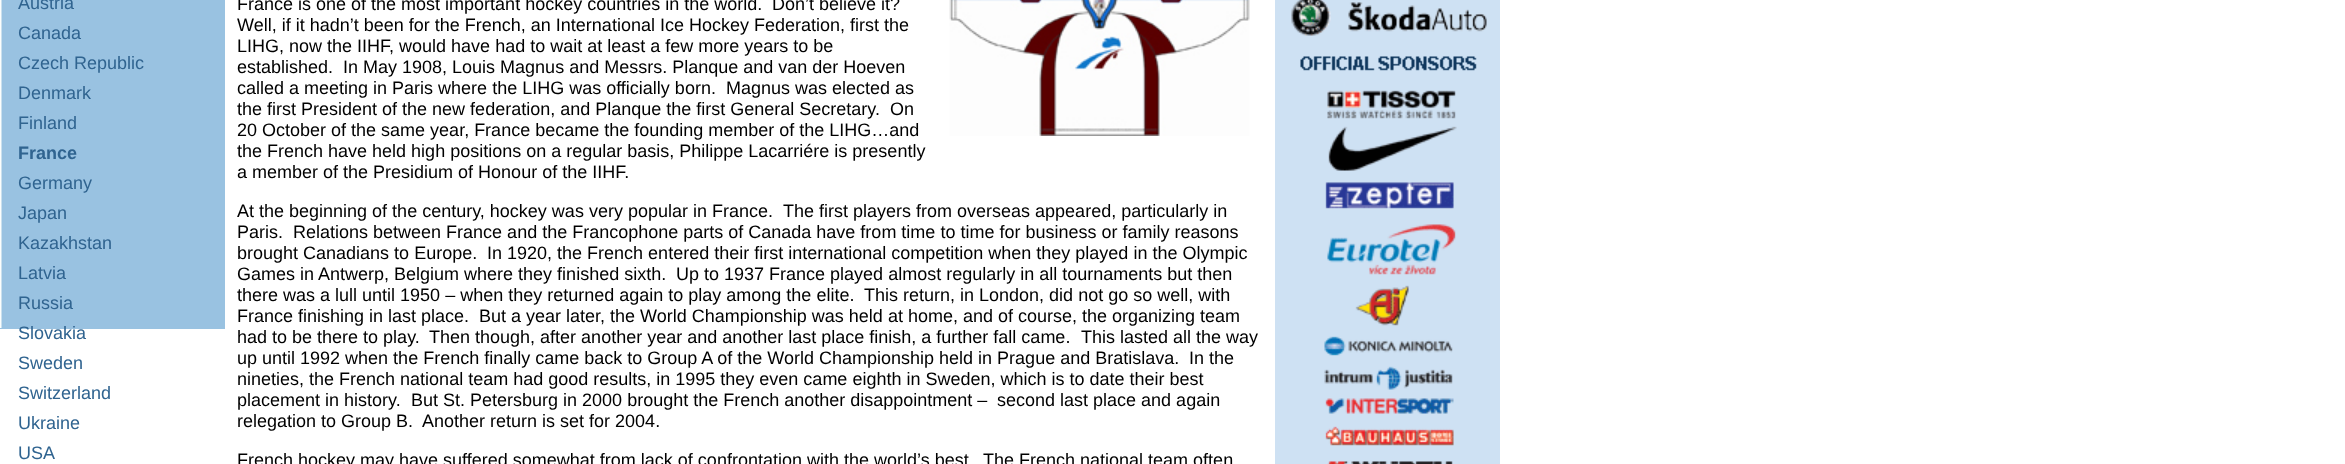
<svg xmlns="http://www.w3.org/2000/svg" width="2345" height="464">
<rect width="100%" height="100%" fill="#fff"/>
<rect width="225" height="329" fill="#99c2e1"/>
<image x="0" y="0" width="2" height="328" href="media/1.png"/>
<text x="18" y="9" style="font-family:Liberation Sans;font-size:18px;fill:#306490">Austria</text>
<text x="18" y="39" style="font-family:Liberation Sans;font-size:18px;fill:#306490">Canada</text>
<text x="18" y="69" style="font-family:Liberation Sans;font-size:18px;fill:#306490">Czech Republic</text>
<text x="18" y="99" style="font-family:Liberation Sans;font-size:18px;fill:#306490">Denmark</text>
<text x="18" y="129" style="font-family:Liberation Sans;font-size:18px;fill:#306490">Finland</text>
<text x="18" y="159" style="font-family:Liberation Sans;font-size:18px;font-weight:bold;fill:#306490">France</text>
<text x="18" y="189" style="font-family:Liberation Sans;font-size:18px;fill:#306490">Germany</text>
<text x="18" y="219" style="font-family:Liberation Sans;font-size:18px;fill:#306490">Japan</text>
<text x="18" y="249" style="font-family:Liberation Sans;font-size:18px;fill:#306490">Kazakhstan</text>
<text x="18" y="279" style="font-family:Liberation Sans;font-size:18px;fill:#306490">Latvia</text>
<text x="18" y="309" style="font-family:Liberation Sans;font-size:18px;fill:#306490">Russia</text>
<text x="18" y="339" style="font-family:Liberation Sans;font-size:18px;fill:#306490">Slovakia</text>
<text x="18" y="369" style="font-family:Liberation Sans;font-size:18px;fill:#306490">Sweden</text>
<text x="18" y="399" style="font-family:Liberation Sans;font-size:18px;fill:#306490">Switzerland</text>
<text x="18" y="429" style="font-family:Liberation Sans;font-size:18px;fill:#306490">Ukraine</text>
<text x="18" y="459" style="font-family:Liberation Sans;font-size:18px;fill:#306490">USA</text>
<text x="237" y="10" style="font-family:Liberation Sans;font-size:18px;fill:#000">France is one of the most important hockey countries in the world.</text>
<text x="772" y="10" style="font-family:Liberation Sans;font-size:18px;fill:#000">Don’t believe it?</text>
<image x="949" y="0" width="301" height="136" href="media/2.png"/>
<text x="237" y="31" style="font-family:Liberation Sans;font-size:18px;fill:#000">Well, if it hadn’t been for the French, an International Ice Hockey Federation, first the</text>
<text x="237" y="52" style="font-family:Liberation Sans;font-size:18px;fill:#000">LIHG, now the IIHF, would have had to wait at least a few more years to be</text>
<text x="237" y="73" style="font-family:Liberation Sans;font-size:18px;fill:#000">established.</text>
<text x="343" y="73" style="font-family:Liberation Sans;font-size:18px;fill:#000">In May 1908, Louis Magnus and Messrs. Planque and van der Hoeven</text>
<text x="237" y="94" style="font-family:Liberation Sans;font-size:18px;fill:#000">called a meeting in Paris where the LIHG was officially born.</text>
<text x="726" y="94" style="font-family:Liberation Sans;font-size:18px;fill:#000">Magnus was elected as</text>
<text x="237" y="115" style="font-family:Liberation Sans;font-size:18px;fill:#000">the first President of the new federation, and Planque the first General Secretary.</text>
<text x="890" y="115" style="font-family:Liberation Sans;font-size:18px;fill:#000">On</text>
<text x="237" y="136" style="font-family:Liberation Sans;font-size:18px;fill:#000">20 October of the same year, France became the founding member of the LIHG…and</text>
<text x="237" y="157" style="font-family:Liberation Sans;font-size:18px;fill:#000">the French have held high positions on a regular basis, Philippe Lacarriére is presently</text>
<text x="237" y="178" style="font-family:Liberation Sans;font-size:18px;fill:#000">a member of the Presidium of Honour of the IIHF.</text>
<text x="237" y="217" style="font-family:Liberation Sans;font-size:18px;fill:#000">At the beginning of the century, hockey was very popular in France.</text>
<text x="783" y="217" style="font-family:Liberation Sans;font-size:18px;fill:#000">The first players from overseas appeared, particularly in</text>
<text x="237" y="238" style="font-family:Liberation Sans;font-size:18px;fill:#000">Paris.</text>
<text x="293" y="238" style="font-family:Liberation Sans;font-size:18px;fill:#000">Relations between France and the Francophone parts of Canada have from time to time for business or family reasons</text>
<text x="237" y="259" style="font-family:Liberation Sans;font-size:18px;fill:#000">brought Canadians to Europe.</text>
<text x="487" y="259" style="font-family:Liberation Sans;font-size:18px;fill:#000">In 1920, the French entered their first international competition when they played in the Olympic</text>
<text x="237" y="280" style="font-family:Liberation Sans;font-size:18px;fill:#000">Games in</text>
<text x="318" y="280" style="font-family:Liberation Sans;font-size:18px;fill:#000">Antwerp, Belgium where they finished sixth.</text>
<text x="676" y="280" style="font-family:Liberation Sans;font-size:18px;fill:#000">Up to 1937 France played almost regularly in all tournaments but then</text>
<text x="237" y="301" style="font-family:Liberation Sans;font-size:18px;fill:#000">there was a lull until 1950 – when they returned again to play among the elite.</text>
<text x="864" y="301" style="font-family:Liberation Sans;font-size:18px;fill:#000">This return, in London, did not go so well, with</text>
<text x="237" y="322" style="font-family:Liberation Sans;font-size:18px;fill:#000">France finishing in last place.</text>
<text x="479" y="322" style="font-family:Liberation Sans;font-size:18px;fill:#000">But a year later, the World Championship was held at home, and of course, the organizing team</text>
<text x="237" y="343" style="font-family:Liberation Sans;font-size:18px;fill:#000">had to be there to play.</text>
<text x="429" y="343" style="font-family:Liberation Sans;font-size:18px;fill:#000">Then though, after another year and another last place finish, a further fall came.</text>
<text x="1081" y="343" style="font-family:Liberation Sans;font-size:18px;fill:#000">This lasted all the way</text>
<text x="237" y="364" style="font-family:Liberation Sans;font-size:18px;fill:#000">up until 1992 when the French finally came back to Group A of the World Championship held in Prague and Bratislava.</text>
<text x="1189" y="364" style="font-family:Liberation Sans;font-size:18px;fill:#000">In the</text>
<text x="237" y="385" style="font-family:Liberation Sans;font-size:18px;fill:#000">nineties, the French national team had good results, in 1995 they even came eighth in Sweden, which is to date their best</text>
<text x="237" y="406" style="font-family:Liberation Sans;font-size:18px;fill:#000">placement in history.</text>
<text x="411" y="406" style="font-family:Liberation Sans;font-size:18px;fill:#000">But St. Petersburg in 2000 brought the French another disappointment –</text>
<text x="997" y="406" style="font-family:Liberation Sans;font-size:18px;fill:#000">second last place and again</text>
<text x="237" y="427" style="font-family:Liberation Sans;font-size:18px;fill:#000">relegation to Group B.</text>
<text x="422" y="427" style="font-family:Liberation Sans;font-size:18px;fill:#000">Another return is set for 2004.</text>
<text x="237" y="466" style="font-family:Liberation Sans;font-size:18px;fill:#000">French hockey may have suffered somewhat from lack of confrontation with the world’s best</text>
<text x="983" y="466" style="font-family:Liberation Sans;font-size:18px;fill:#000">The French national team often</text>
<image x="1275" y="0" width="225" height="464" href="media/3.png"/>
</svg>
